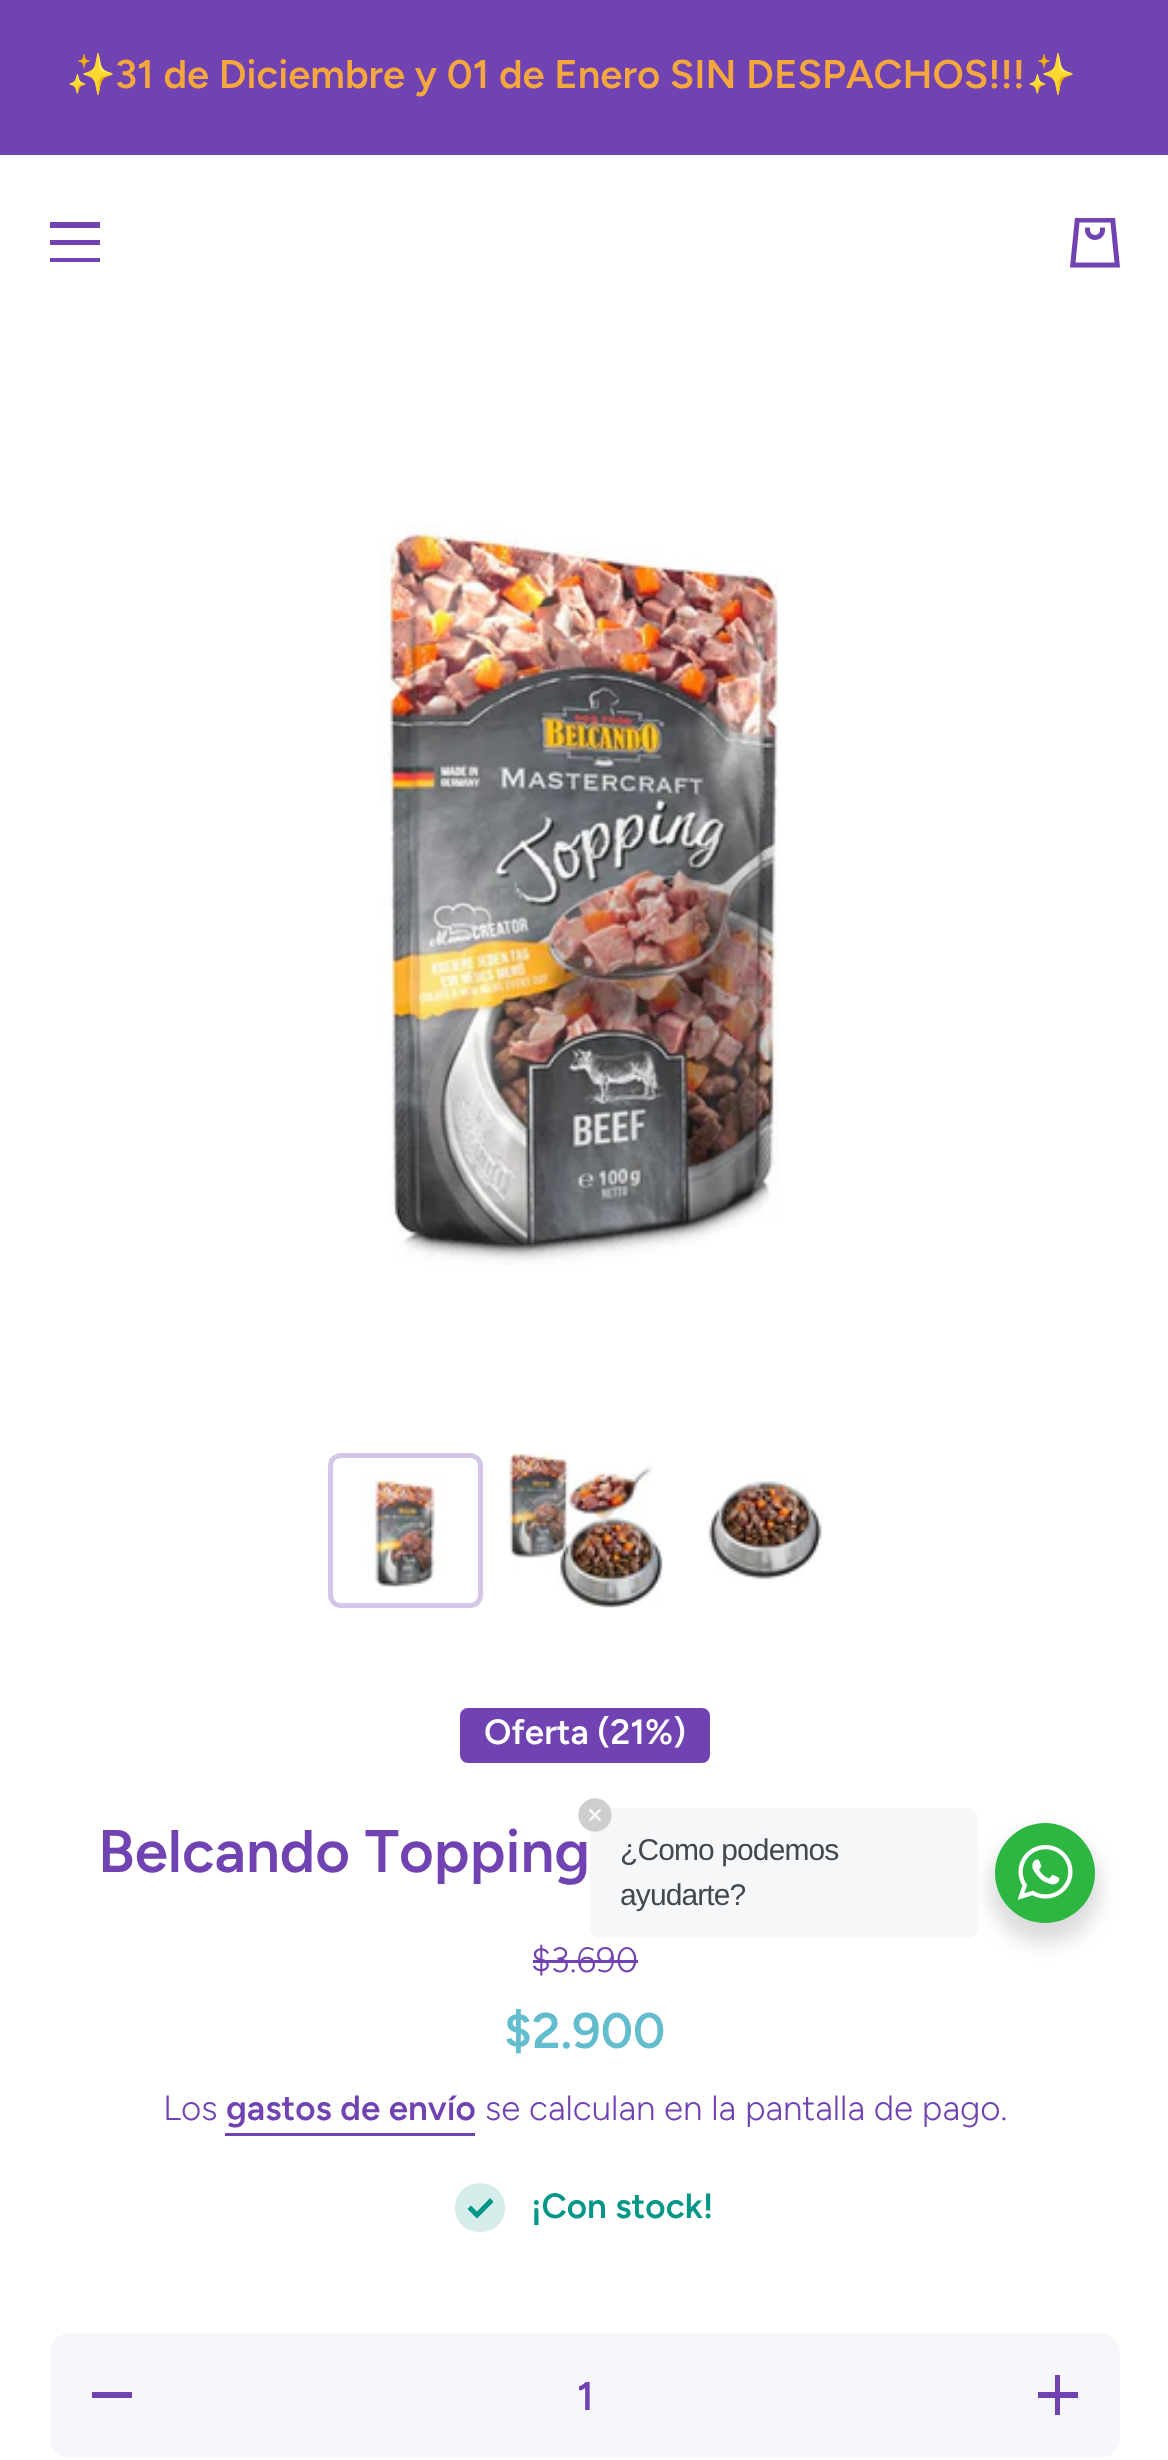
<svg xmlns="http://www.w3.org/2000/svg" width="1168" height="2460">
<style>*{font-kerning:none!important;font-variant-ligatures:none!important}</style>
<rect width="100%" height="100%" fill="#fff"/>
<rect width="1168" height="155" fill="#7042b2"/>
<text x="66" y="88" style="font-family:Noto Color Emoji;font-size:40px;font-weight:bold;fill:#f4a73d">✨</text>
<text x="115" y="88" style="font-family:Figtree;font-size:40px;font-weight:600;fill:#f4a73d">31 de Diciembre y 01 de Enero SIN DESPACHOS!!!</text>
<text x="1026" y="88" style="font-family:Noto Color Emoji;font-size:40px;font-weight:bold;fill:#f4a73d">✨</text>
<rect x="50" y="222" width="50" height="6" fill="#7042b2"/>
<rect x="50" y="240" width="50" height="5" fill="#7042b2"/>
<rect x="50" y="258" width="50" height="4" fill="#7042b2"/>
<image x="1070" y="218" width="50" height="50" href="media/1.png"/>
<image x="380" y="524" width="400" height="742" href="media/2.png"/>
<image x="366" y="1473" width="78" height="116" href="media/3.png"/>
<rect x="330.5" y="1455.5" width="150" height="150" rx="10.5" fill="none" stroke="#d4c6e8" stroke-width="5"/>
<image x="508" y="1452" width="155" height="156" href="media/4.png"/>
<image x="707" y="1477" width="116" height="103" href="media/5.png"/>
<rect x="460" y="1708" width="250" height="55" rx="8" fill="#7042b2"/>
<text x="484" y="1744" style="font-family:Figtree;font-size:35px;font-weight:600;fill:#fff">Oferta (21%)</text>
<text x="98" y="1872" style="font-family:Figtree;font-size:60px;font-weight:600;fill:#7042b2">Belcando Topping</text>
<text x="531" y="1972" style="font-family:Figtree;font-size:35px;font-weight:300;fill:#7042b2">$3.690</text>
<rect x="533" y="1960" width="105" height="3" fill="#7042b2"/>
<text x="504" y="2048" style="font-family:Figtree;font-size:50px;font-weight:600;fill:#62bdcf">$2.900</text>
<text x="163" y="2120" style="font-family:Figtree;font-size:35px;font-weight:300;fill:#7042b2">Los</text>
<text x="226" y="2120" style="font-family:Figtree;font-size:35px;font-weight:600;fill:#7042b2">gastos de envío</text>
<rect x="225" y="2133" width="250" height="3" fill="#7042b2"/>
<text x="485" y="2120" style="font-family:Figtree;font-size:35px;font-weight:300;fill:#7042b2">se calculan en la pantalla de pago.</text>
<path d="M505 2208c0 32-50 32-50 0c0-33 50-33 50 0z" fill="#d7edec" fill-rule="evenodd"/>
<path d="M477 2218.5l16.5-16.5l-3.5-4l-13 13.5l-6-6l-3.5 3.5z" fill="#009688"/>
<text x="531" y="2218" style="font-family:Figtree;font-size:35px;font-weight:600;fill:#009688">¡Con stock!</text>
<rect x="50" y="2333" width="1070" height="125" rx="20" fill="#f6f7fa"/>
<rect x="92" y="2392" width="40" height="6" fill="#7042b2"/>
<text x="577" y="2410" style="font-family:Figtree;font-size:40px;font-weight:600;fill:#7042b2">1</text>
<path d="M1055 2398v17h5v-17h18v-6h-18v-17h-5v17h-17v6z" fill="#7042b2"/>
<rect x="990" y="1833" width="110" height="110" rx="55" fill="#00000024" filter="blur(10px)"/>
<rect x="590" y="1808" width="388" height="130" rx="10" fill="#f5f7f9"/>
<image x="578" y="1798" width="34" height="34" href="media/6.png"/>
<text x="620" y="1860" style="font-family:Liberation Sans;font-size:30px;letter-spacing:-0.9px;fill:#43474e">¿Como podemos</text>
<text x="620" y="1905" style="font-family:Liberation Sans;font-size:30px;letter-spacing:-0.9px;fill:#43474e">ayudarte?</text>
<circle cx="1045" cy="1873" r="50" fill="#2db742"/>
<image x="1018" y="1845" width="55" height="55" href="media/7.png"/>
</svg>
